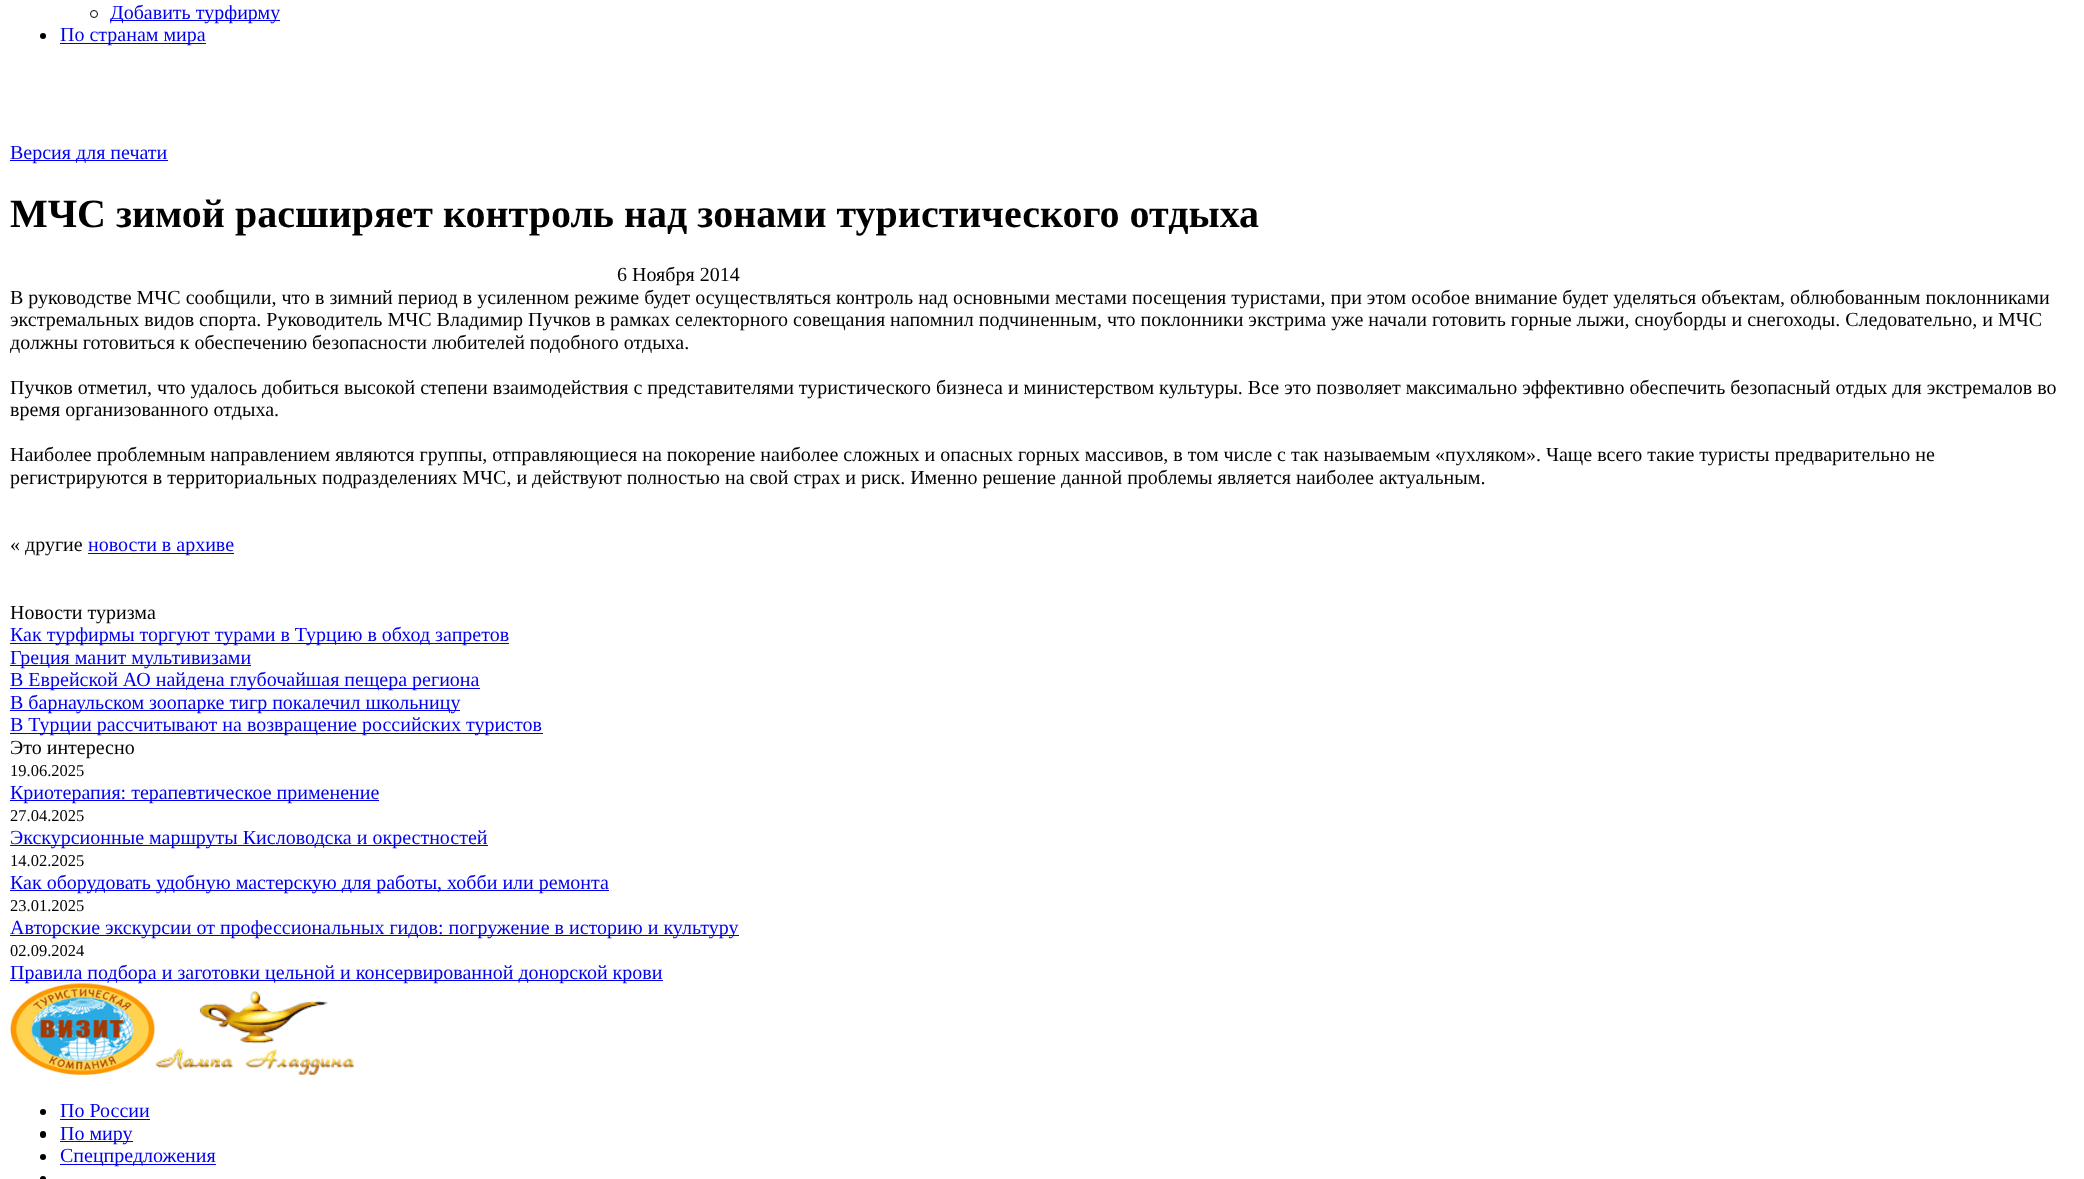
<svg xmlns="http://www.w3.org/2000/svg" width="2084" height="1179">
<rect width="100%" height="100%" fill="#fff"/>
<circle cx="94" cy="14" r="3.5" fill="none" stroke="#000"/>
<rect x="110" y="20" width="170" height="1" fill="#00e"/>
<text x="110" y="19" style="font-family:Liberation Serif;font-size:20px;fill:#00e">Добавить турфирму</text>
<circle cx="43" cy="36" r="3" fill="#000"/>
<rect x="60" y="43" width="146" height="1" fill="#00e"/>
<text x="60" y="41" style="font-family:Liberation Serif;font-size:20px;fill:#00e">По странам мира</text>
<rect x="10" y="160" width="158" height="1" fill="#00e"/>
<text x="10" y="159" style="font-family:Liberation Serif;font-size:20px;fill:#00e">Версия для печати</text>
<text x="10" y="227" style="font-family:Liberation Serif;font-size:40px;font-weight:bold;fill:#000">МЧС зимой расширяет контроль над зонами туристического отдыха</text>
<text x="617" y="281" style="font-family:Liberation Serif;font-size:20px;fill:#000">6 Ноября 2014</text>
<text x="10" y="304" style="font-family:Liberation Serif;font-size:20px;fill:#000">В руководстве МЧС сообщили, что в зимний период в усиленном режиме будет осуществляться контроль над основными местами посещения туристами, при этом особое внимание будет уделяться объектам, облюбованным поклонниками</text>
<text x="10" y="326" style="font-family:Liberation Serif;font-size:20px;fill:#000">экстремальных видов спорта. Руководитель МЧС Владимир Пучков в рамках селекторного совещания напомнил подчиненным, что поклонники экстрима уже начали готовить горные лыжи, сноуборды и снегоходы. Следовательно, и МЧС</text>
<text x="10" y="349" style="font-family:Liberation Serif;font-size:20px;fill:#000">должны готовиться к обеспечению безопасности любителей подобного отдыха.</text>
<text x="10" y="394" style="font-family:Liberation Serif;font-size:20px;fill:#000">Пучков отметил, что удалось добиться высокой степени взаимодействия с представителями туристического бизнеса и министерством культуры. Все это позволяет максимально эффективно обеспечить безопасный отдых для экстремалов во</text>
<text x="10" y="416" style="font-family:Liberation Serif;font-size:20px;fill:#000">время организованного отдыха.</text>
<text x="10" y="461" style="font-family:Liberation Serif;font-size:20px;fill:#000">Наиболее проблемным направлением являются группы, отправляющиеся на покорение наиболее сложных и опасных горных массивов, в том числе с так называемым «пухляком». Чаще всего такие туристы предварительно не</text>
<text x="10" y="484" style="font-family:Liberation Serif;font-size:20px;fill:#000">регистрируются в территориальных подразделениях МЧС, и действуют полностью на свой страх и риск. Именно решение данной проблемы является наиболее актуальным.</text>
<text x="10" y="551" style="font-family:Liberation Serif;font-size:20px;fill:#000">« другие</text>
<rect x="88" y="553" width="146" height="1" fill="#00e"/>
<text x="88" y="551" style="font-family:Liberation Serif;font-size:20px;fill:#00e">новости в архиве</text>
<text x="10" y="619" style="font-family:Liberation Serif;font-size:20px;fill:#000">Новости туризма</text>
<rect x="10" y="643" width="499" height="1" fill="#00e"/>
<text x="10" y="641" style="font-family:Liberation Serif;font-size:20px;fill:#00e">Как турфирмы торгуют турами в Турцию в обход запретов</text>
<rect x="10" y="665" width="241" height="1" fill="#00e"/>
<text x="10" y="664" style="font-family:Liberation Serif;font-size:20px;fill:#00e">Греция манит мультивизами</text>
<rect x="10" y="688" width="470" height="1" fill="#00e"/>
<text x="10" y="686" style="font-family:Liberation Serif;font-size:20px;fill:#00e">В Еврейской АО найдена глубочайшая пещера региона</text>
<rect x="10" y="710" width="450" height="1" fill="#00e"/>
<text x="10" y="709" style="font-family:Liberation Serif;font-size:20px;fill:#00e">В барнаульском зоопарке тигр покалечил школьницу</text>
<rect x="10" y="733" width="533" height="1" fill="#00e"/>
<text x="10" y="731" style="font-family:Liberation Serif;font-size:20px;fill:#00e">В Турции рассчитывают на возвращение российских туристов</text>
<text x="10" y="754" style="font-family:Liberation Serif;font-size:20px;fill:#000">Это интересно</text>
<text x="10" y="776" style="font-family:Liberation Serif;font-size:16.5px;fill:#000">19.06.2025</text>
<rect x="10" y="800" width="369" height="1" fill="#00e"/>
<text x="10" y="799" style="font-family:Liberation Serif;font-size:20px;fill:#00e">Криотерапия: терапевтическое применение</text>
<text x="10" y="821" style="font-family:Liberation Serif;font-size:16.5px;fill:#000">27.04.2025</text>
<rect x="10" y="845" width="478" height="1" fill="#00e"/>
<text x="10" y="844" style="font-family:Liberation Serif;font-size:20px;fill:#00e">Экскурсионные маршруты Кисловодска и окрестностей</text>
<text x="10" y="866" style="font-family:Liberation Serif;font-size:16.5px;fill:#000">14.02.2025</text>
<rect x="10" y="890" width="599" height="1" fill="#00e"/>
<text x="10" y="889" style="font-family:Liberation Serif;font-size:20px;fill:#00e">Как оборудовать удобную мастерскую для работы, хобби или ремонта</text>
<text x="10" y="911" style="font-family:Liberation Serif;font-size:16.5px;fill:#000">23.01.2025</text>
<rect x="10" y="935" width="729" height="1" fill="#00e"/>
<text x="10" y="934" style="font-family:Liberation Serif;font-size:20px;fill:#00e">Авторские экскурсии от профессиональных гидов: погружение в историю и культуру</text>
<text x="10" y="956" style="font-family:Liberation Serif;font-size:16.5px;fill:#000">02.09.2024</text>
<rect x="10" y="980" width="653" height="1" fill="#00e"/>
<text x="10" y="979" style="font-family:Liberation Serif;font-size:20px;fill:#00e">Правила подбора и заготовки цельной и консервированной донорской крови</text>
<image x="10" y="983" width="145" height="92" href="media/1.png"/>
<image x="155" y="991" width="199" height="84" href="media/2.png"/>
<circle cx="43" cy="1112" r="3" fill="#000"/>
<text x="60" y="1117" style="font-family:Liberation Serif;font-size:20px;fill:#00e">По России</text>
<rect x="60" y="1119" width="90" height="1" fill="#00e"/>
<rect x="40" y="1131" width="6" height="7" rx="3" fill="#000"/>
<rect x="60" y="1141" width="73" height="1" fill="#00e"/>
<text x="60" y="1140" style="font-family:Liberation Serif;font-size:20px;fill:#00e">По миру</text>
<circle cx="43" cy="1157" r="3" fill="#000"/>
<rect x="60" y="1164" width="156" height="1" fill="#00e"/>
<text x="60" y="1162" style="font-family:Liberation Serif;font-size:20px;fill:#00e">Спецпредложения</text>
<circle cx="43" cy="1179" r="3" fill="#000"/>
</svg>
